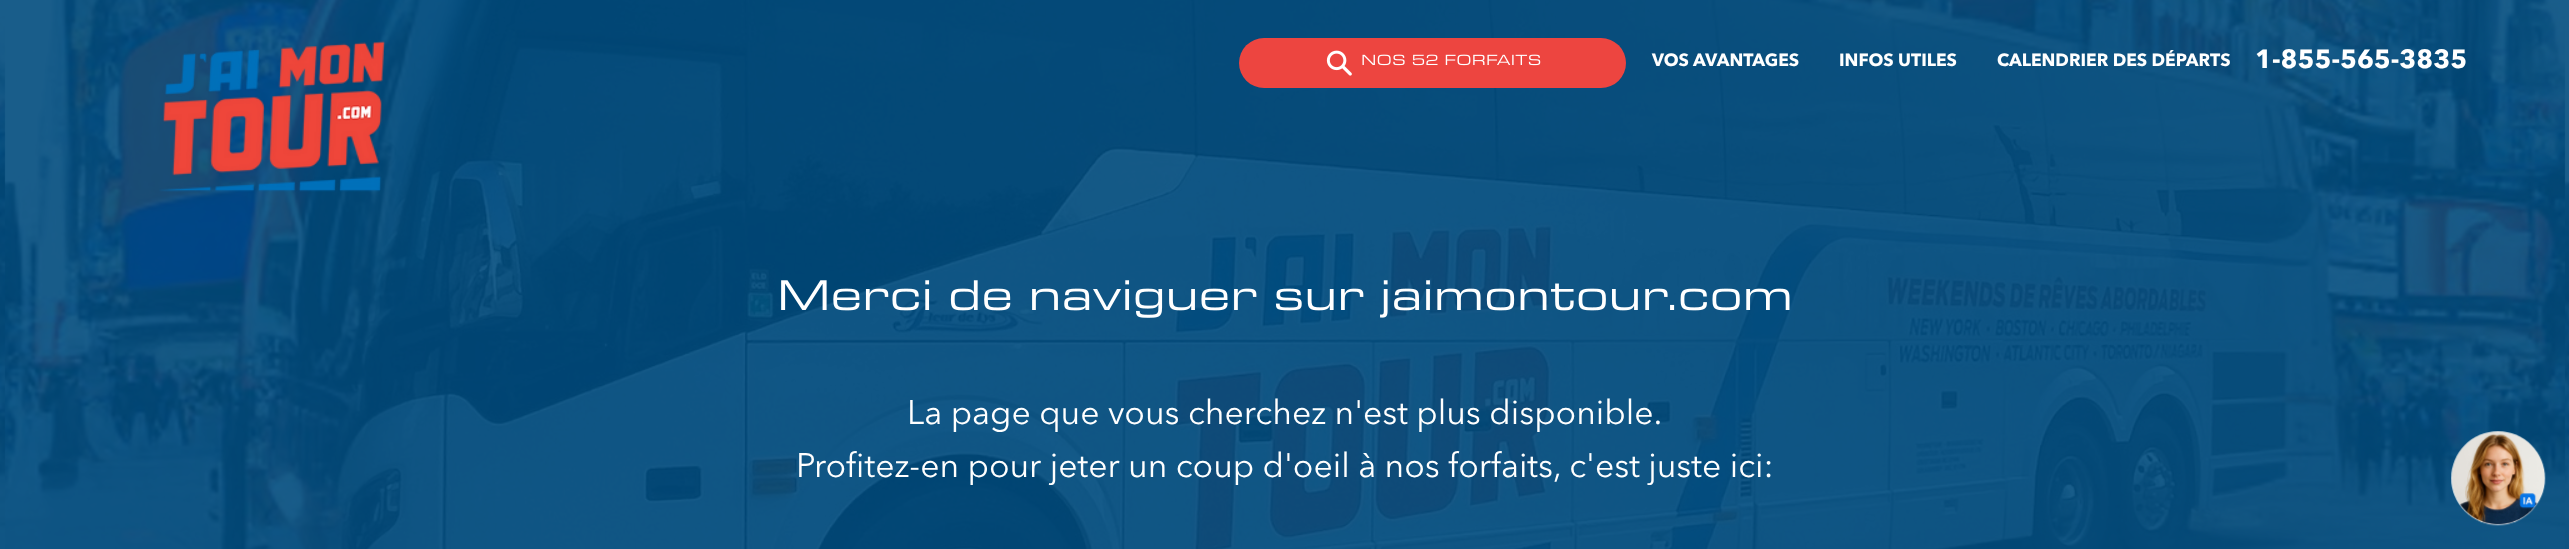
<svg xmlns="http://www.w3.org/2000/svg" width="2569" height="549">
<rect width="100%" height="100%" fill="#fff"/>
<image x="0" y="0" width="2569" height="549" href="media/4.png"/>
<image x="159" y="41" width="227" height="151" href="media/1.png"/>
<rect x="1239" y="38" width="387" height="50" rx="25" fill="#ed4540"/>
<image x="1326" y="50" width="26" height="26" href="media/2.png"/>
<image x="1362" y="54" width="179" height="12" href="media/3.png"/>
<text x="1652" y="66" style="font-family:Avenir Next;font-size:17.5px;font-weight:bold;fill:#fff">VOS AVANTAGES</text>
<text x="1839" y="66" style="font-family:Avenir Next;font-size:17.5px;font-weight:bold;fill:#fff">INFOS UTILES</text>
<text x="1997" y="66" style="font-family:Avenir Next;font-size:17.5px;font-weight:bold;fill:#fff">CALENDRIER DES DÉPARTS</text>
<text x="2255" y="68" style="font-family:Avenir Next;font-size:26.25px;font-weight:bold;fill:#fff">1-855-565-3835</text>
<image x="781" y="280" width="1009" height="38" href="media/5.png"/>
<text x="907" y="424" style="font-family:Avenir Next;font-size:33.75px;fill:#fff">La page que vous cherchez n'est plus disponible.</text>
<text x="796" y="477" style="font-family:Avenir Next;font-size:33.75px;fill:#fff">Profitez-en pour jeter un coup d'oeil à nos forfaits, c'est juste ici:</text>
<image x="2451" y="431" width="95" height="95" href="media/6.png"/>
</svg>
